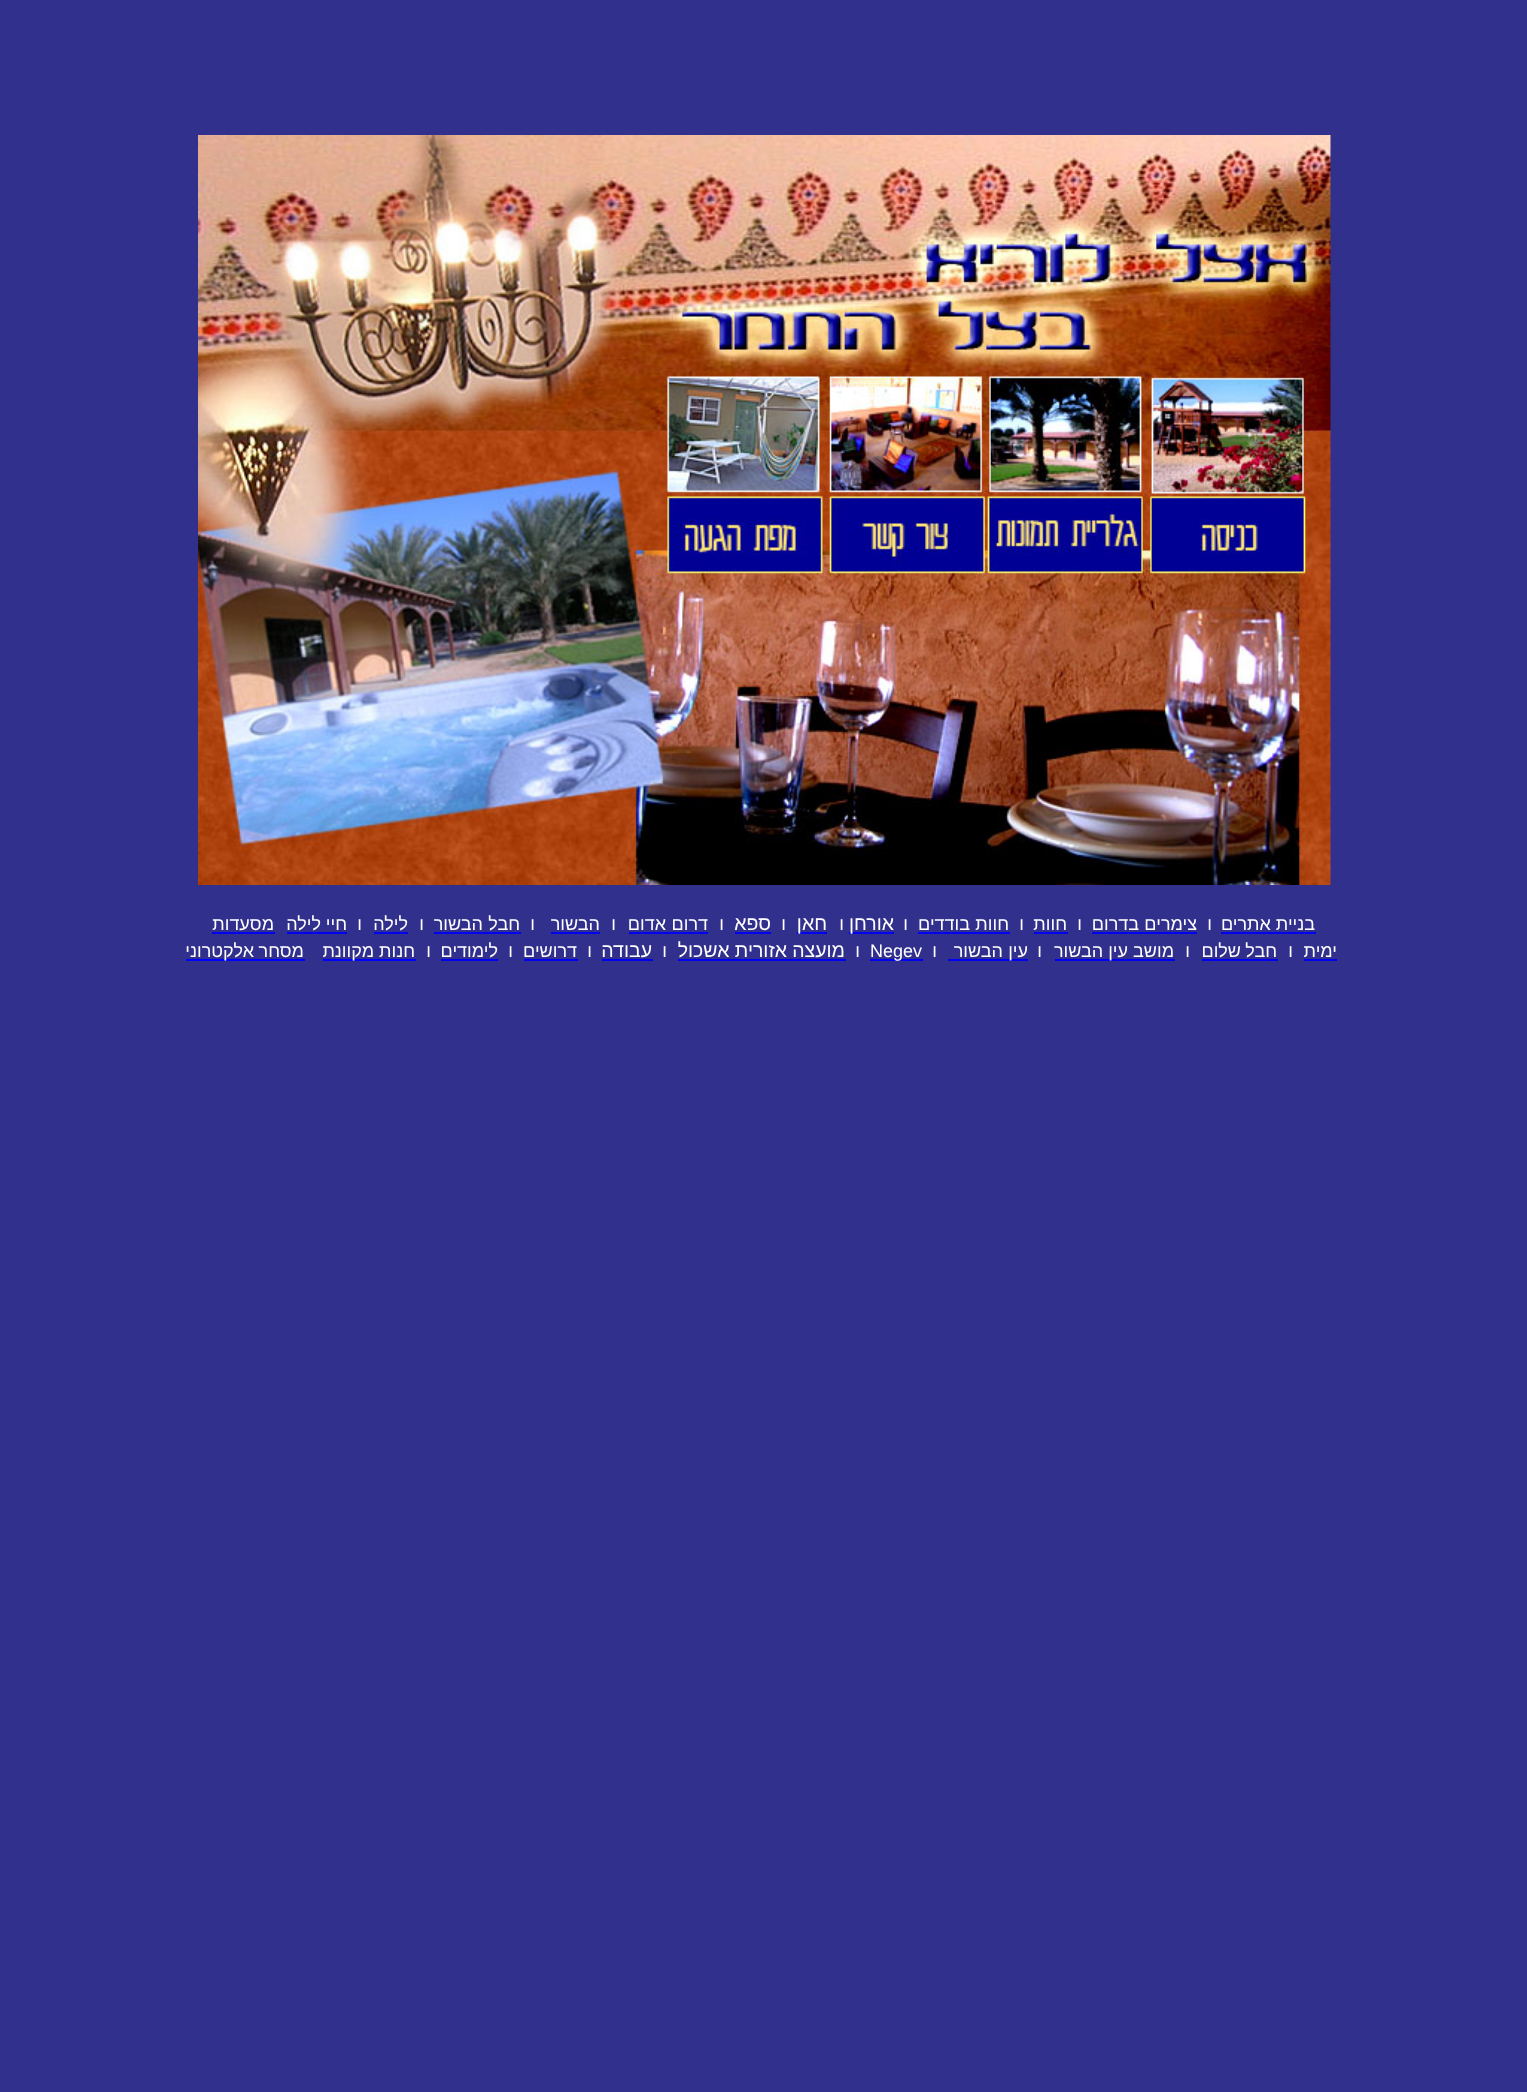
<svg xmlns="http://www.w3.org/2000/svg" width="1527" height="2092">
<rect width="100%" height="100%" fill="#31308d"/>
<image x="198" y="135" width="1133" height="750" href="media/1.png"/>
<text x="1315" y="930" style="font-family:Liberation Sans;font-size:18px;direction:rtl;fill:#fff">בניית אתרים</text>
<rect x="1221" y="932" width="95" height="2" fill="#00e"/>
<text x="1212" y="930" style="font-family:Liberation Sans;font-size:18px;direction:rtl;fill:#fff">ו</text>
<text x="1197" y="930" style="font-family:Liberation Sans;font-size:18px;direction:rtl;fill:#fff">צימרים</text>
<rect x="1092" y="932" width="105" height="2" fill="#00e"/>
<text x="1139" y="930" style="font-family:Liberation Sans;font-size:18px;direction:rtl;fill:#fff">בדרום</text>
<text x="1082" y="930" style="font-family:Liberation Sans;font-size:18px;direction:rtl;fill:#fff">ו</text>
<text x="1067" y="930" style="font-family:Liberation Sans;font-size:18px;direction:rtl;fill:#fff">חוות</text>
<rect x="1034" y="932" width="34" height="2" fill="#00e"/>
<text x="1024" y="930" style="font-family:Liberation Sans;font-size:18px;direction:rtl;fill:#fff">ו</text>
<text x="1009" y="930" style="font-family:Liberation Sans;font-size:18px;direction:rtl;fill:#fff">חוות</text>
<rect x="918" y="932" width="92" height="2" fill="#00e"/>
<text x="970" y="930" style="font-family:Liberation Sans;font-size:18px;direction:rtl;fill:#fff">בודדים</text>
<text x="908" y="930" style="font-family:Liberation Sans;font-size:18px;direction:rtl;fill:#fff">ו</text>
<rect x="849" y="932" width="45" height="2" fill="#00e"/>
<text x="894" y="930" style="font-family:Liberation Sans;font-size:19.5px;direction:rtl;fill:#fff">אורחן</text>
<text x="844" y="930" style="font-family:Liberation Sans;font-size:18px;direction:rtl;fill:#fff">ו</text>
<rect x="797" y="932" width="30" height="2" fill="#00e"/>
<text x="827" y="930" style="font-family:Liberation Sans;font-size:19.5px;direction:rtl;fill:#fff">חאן</text>
<text x="786" y="930" style="font-family:Liberation Sans;font-size:18px;direction:rtl;fill:#fff">ו</text>
<text x="771" y="930" style="font-family:Liberation Sans;font-size:19.5px;direction:rtl;fill:#fff">ספא</text>
<rect x="735" y="932" width="36" height="2" fill="#00e"/>
<text x="724" y="930" style="font-family:Liberation Sans;font-size:18px;direction:rtl;fill:#fff">ו</text>
<text x="708" y="930" style="font-family:Liberation Sans;font-size:18px;direction:rtl;fill:#fff">דרום</text>
<rect x="629" y="932" width="79" height="2" fill="#00e"/>
<text x="666" y="930" style="font-family:Liberation Sans;font-size:18px;direction:rtl;fill:#fff">אדום</text>
<text x="616" y="930" style="font-family:Liberation Sans;font-size:18px;direction:rtl;fill:#fff">ו</text>
<text x="600" y="930" style="font-family:Liberation Sans;font-size:18px;direction:rtl;fill:#fff">הבשור</text>
<rect x="551" y="932" width="49" height="2" fill="#00e"/>
<text x="535" y="930" style="font-family:Liberation Sans;font-size:18px;direction:rtl;fill:#fff">ו</text>
<text x="520" y="930" style="font-family:Liberation Sans;font-size:18px;direction:rtl;fill:#fff">חבל</text>
<text x="483" y="930" style="font-family:Liberation Sans;font-size:18px;direction:rtl;fill:#fff">הבשור</text>
<rect x="434" y="932" width="87" height="2" fill="#00e"/>
<text x="424" y="930" style="font-family:Liberation Sans;font-size:18px;direction:rtl;fill:#fff">ו</text>
<text x="408" y="930" style="font-family:Liberation Sans;font-size:18px;direction:rtl;fill:#fff">לילה</text>
<rect x="374" y="932" width="34" height="2" fill="#00e"/>
<text x="362" y="930" style="font-family:Liberation Sans;font-size:18px;direction:rtl;fill:#fff">ו</text>
<text x="347" y="930" style="font-family:Liberation Sans;font-size:18px;direction:rtl;fill:#fff">חיי</text>
<rect x="287" y="932" width="60" height="2" fill="#00e"/>
<text x="321" y="930" style="font-family:Liberation Sans;font-size:18px;direction:rtl;fill:#fff">לילה</text>
<text x="274" y="930" style="font-family:Liberation Sans;font-size:18px;direction:rtl;fill:#fff">מסעדות</text>
<rect x="212" y="932" width="63" height="2" fill="#00e"/>
<text x="1337" y="957" style="font-family:Liberation Sans;font-size:18px;direction:rtl;fill:#fff">ימית</text>
<rect x="1304" y="959" width="33" height="2" fill="#00e"/>
<text x="1293" y="957" style="font-family:Liberation Sans;font-size:18px;direction:rtl;fill:#fff">ו</text>
<text x="1277" y="957" style="font-family:Liberation Sans;font-size:18px;direction:rtl;fill:#fff">חבל</text>
<rect x="1202" y="959" width="76" height="2" fill="#00e"/>
<text x="1241" y="957" style="font-family:Liberation Sans;font-size:18px;direction:rtl;fill:#fff">שלום</text>
<text x="1190" y="957" style="font-family:Liberation Sans;font-size:18px;direction:rtl;fill:#fff">ו</text>
<text x="1174" y="957" style="font-family:Liberation Sans;font-size:18px;direction:rtl;fill:#fff">מושב</text>
<rect x="1055" y="959" width="120" height="2" fill="#00e"/>
<text x="1128" y="957" style="font-family:Liberation Sans;font-size:18px;direction:rtl;fill:#fff">עין הבשור</text>
<text x="1042" y="957" style="font-family:Liberation Sans;font-size:18px;direction:rtl;fill:#fff">ו</text>
<rect x="948" y="959" width="80" height="2" fill="#00e"/>
<text x="1028" y="957" style="font-family:Liberation Sans;font-size:18px;direction:rtl;fill:#fff">עין</text>
<text x="1003" y="957" style="font-family:Liberation Sans;font-size:18px;direction:rtl;fill:#fff">הבשור</text>
<text x="937" y="957" style="font-family:Liberation Sans;font-size:18px;direction:rtl;fill:#fff">ו</text>
<rect x="870" y="959" width="53" height="2" fill="#00e"/>
<text x="870" y="957" style="font-family:Liberation Sans;font-size:18px;fill:#fff">Negev</text>
<text x="860" y="957" style="font-family:Liberation Sans;font-size:18px;direction:rtl;fill:#fff">ו</text>
<text x="845" y="957" style="font-family:Liberation Sans;font-size:19.5px;direction:rtl;fill:#fff">מועצה</text>
<rect x="678" y="959" width="168" height="2" fill="#00e"/>
<text x="787" y="957" style="font-family:Liberation Sans;font-size:19.5px;direction:rtl;fill:#fff">אזורית אשכול</text>
<text x="667" y="957" style="font-family:Liberation Sans;font-size:18px;direction:rtl;fill:#fff">ו</text>
<text x="652" y="957" style="font-family:Liberation Sans;font-size:19.5px;direction:rtl;fill:#fff">עבודה</text>
<rect x="602" y="959" width="51" height="2" fill="#00e"/>
<text x="592" y="957" style="font-family:Liberation Sans;font-size:18px;direction:rtl;fill:#fff">ו</text>
<text x="577" y="957" style="font-family:Liberation Sans;font-size:18px;direction:rtl;fill:#fff">דרושים</text>
<rect x="524" y="959" width="54" height="2" fill="#00e"/>
<text x="513" y="957" style="font-family:Liberation Sans;font-size:18px;direction:rtl;fill:#fff">ו</text>
<text x="498" y="957" style="font-family:Liberation Sans;font-size:18px;direction:rtl;fill:#fff">לימודים</text>
<rect x="441" y="959" width="57" height="2" fill="#00e"/>
<text x="431" y="957" style="font-family:Liberation Sans;font-size:18px;direction:rtl;fill:#fff">ו</text>
<text x="415" y="957" style="font-family:Liberation Sans;font-size:18px;direction:rtl;fill:#fff">חנות</text>
<rect x="323" y="959" width="93" height="2" fill="#00f"/>
<text x="374" y="957" style="font-family:Liberation Sans;font-size:18px;direction:rtl;fill:#fff">מקוונת</text>
<text x="304" y="957" style="font-family:Liberation Sans;font-size:18px;direction:rtl;fill:#fff">מסחר</text>
<rect x="186" y="959" width="119" height="2" fill="#00f"/>
<text x="254" y="957" style="font-family:Liberation Sans;font-size:18px;direction:rtl;fill:#fff">אלקטרוני</text>
</svg>
